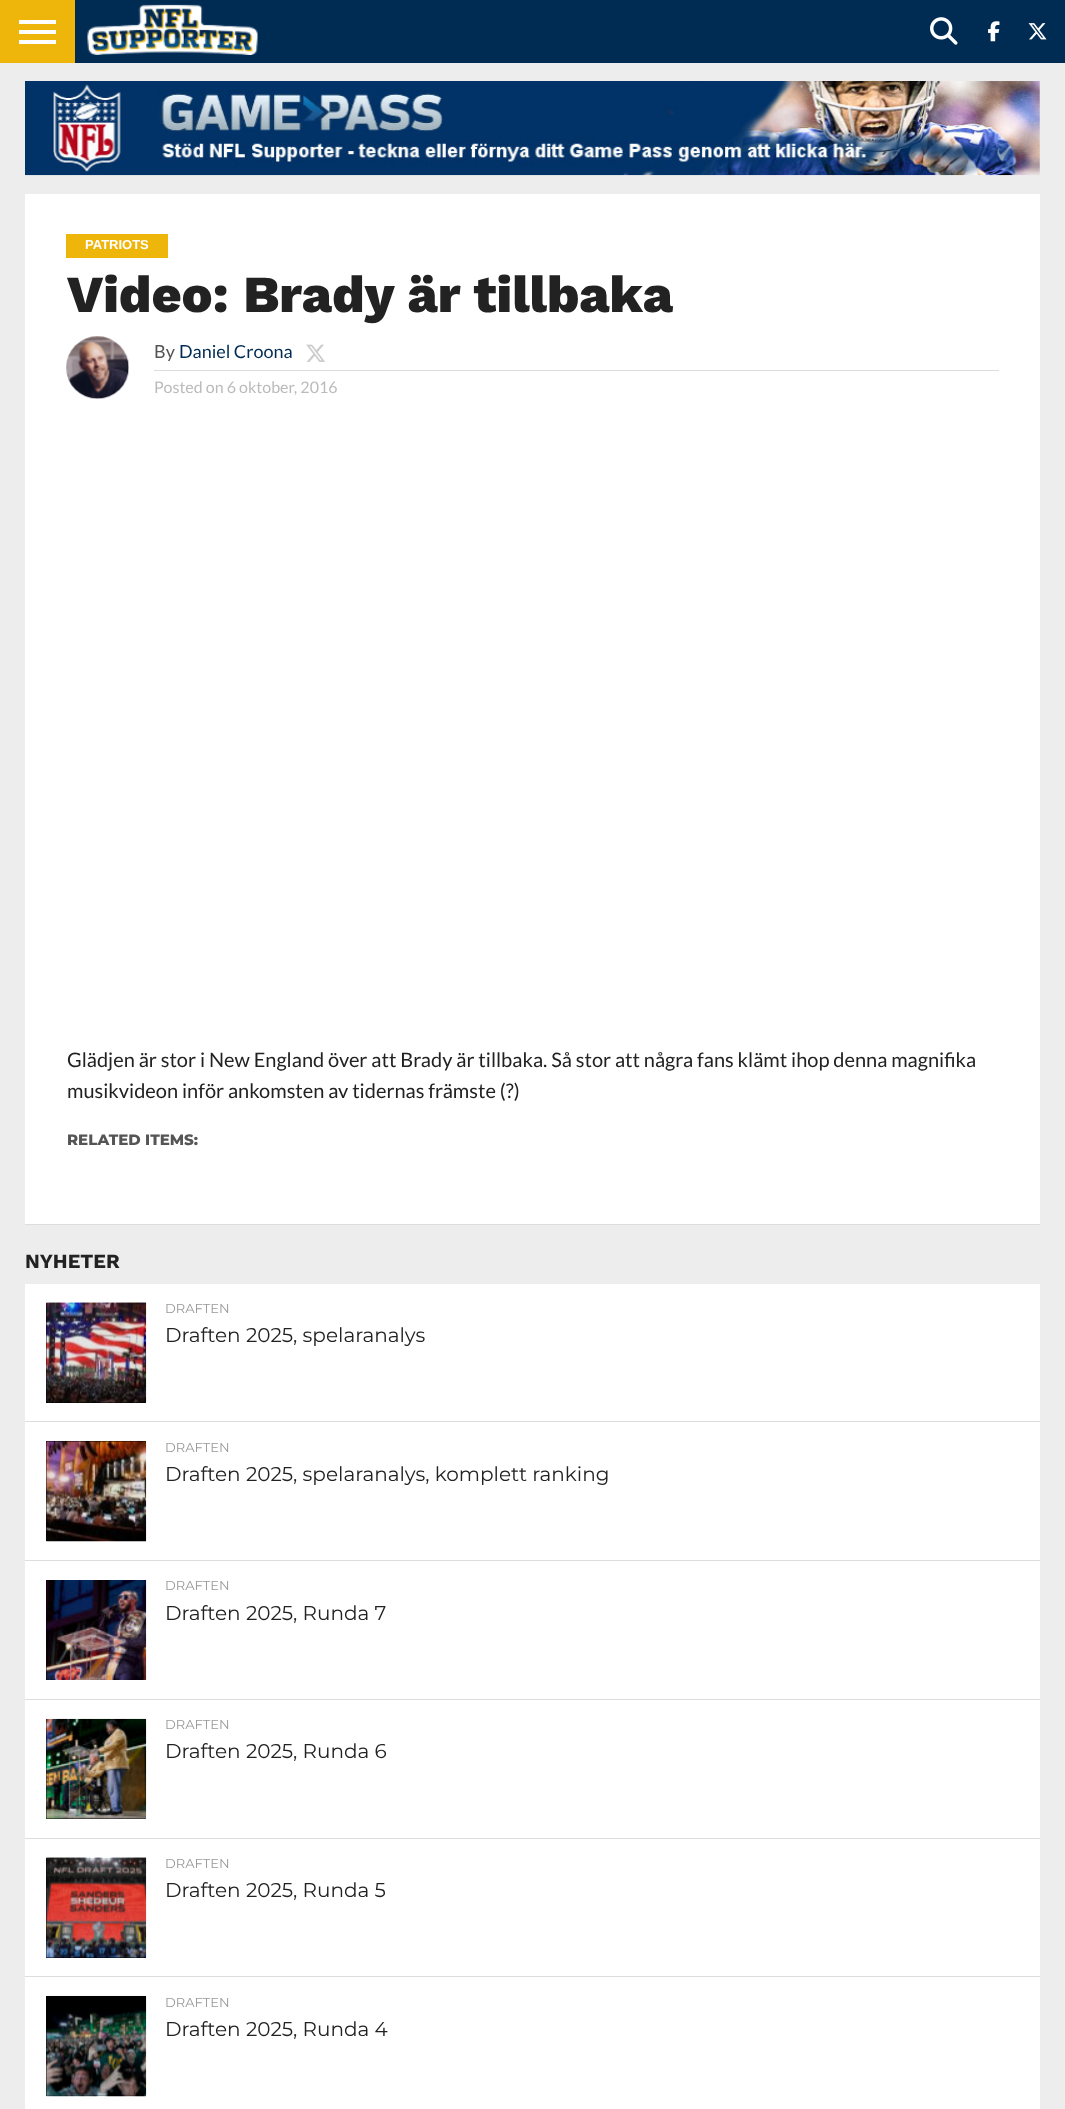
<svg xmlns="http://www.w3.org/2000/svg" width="1065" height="2109">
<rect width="100%" height="100%" fill="#ededed"/>
<rect x="75" width="990" height="63" fill="#002c54"/>
<rect width="75" height="63" fill="#eeb50b"/>
<rect x="19" y="20" width="37" height="4" fill="#fff"/>
<rect x="19" y="30" width="37" height="4" fill="#fff"/>
<rect x="19" y="40" width="37" height="4" fill="#fff"/>
<image x="87" y="4" width="171" height="51" href="media/1.png"/>
<image x="930" y="17" width="28" height="28" href="media/2.png"/>
<image x="988" y="21" width="12" height="21" href="media/3.png"/>
<image x="1028" y="23" width="19" height="17" href="media/4.png"/>
<image x="25" y="81" width="1015" height="95" href="media/5.png"/>
<rect x="25" y="194" width="1015" height="1030" fill="#fff"/>
<rect x="25" y="1224" width="1015" height="1" fill="#ddd"/>
<rect x="66" y="234" width="102" height="24" fill="#eeb50b"/>
<text x="85" y="249" style="font-family:Liberation Sans;font-size:13px;font-weight:bold;fill:#fff">PATRIOTS</text>
<text x="67" y="312" style="font-family:Work Sans;font-size:52px;font-weight:800;fill:#222">Video: Brady är tillbaka</text>
<image x="66" y="336" width="63" height="63" href="media/6.png"/>
<rect x="154" y="370" width="845" height="1" fill="#ddd"/>
<text x="154" y="358" style="font-family:Lato;font-size:18px;fill:#555">By</text>
<text x="179" y="358" style="font-family:Lato;font-size:18px;fill:#002c54">Daniel Croona</text>
<image x="306" y="344" width="19" height="18" href="media/7.png"/>
<text x="154" y="393" style="font-family:Lato;font-size:16px;fill:#bbb">Posted on 6 oktober, 2016</text>
<text x="67" y="1067" style="font-family:Lato;font-size:20px;fill:#222">Glädjen är stor i New England över att Brady är tillbaka. Så stor att några fans klämt ihop denna magnifika</text>
<text x="67" y="1098" style="font-family:Lato;font-size:20px;fill:#222">musikvideon inför ankomsten av tidernas främste (?)</text>
<text x="67" y="1145" style="font-family:Montserrat;font-size:15px;font-weight:800;fill:#555">RELATED ITEMS:</text>
<text x="25" y="1268" style="font-family:Work Sans;font-size:20px;font-weight:bold;fill:#222">NYHETER</text>
<rect x="25" y="1284" width="1015" height="825" fill="#fff"/>
<rect x="46" y="1303" width="100" height="100" fill="#000"/>
<image x="46" y="1302" width="101" height="101" href="media/8.png"/>
<text x="165" y="1313" style="font-family:Montserrat;font-size:13px;fill:#999">DRAFTEN</text>
<text x="165" y="1342" style="font-family:Montserrat;font-size:20px;fill:#222">Draften 2025, spelaranalys</text>
<rect x="25" y="1421" width="1015" height="1" fill="#ddd"/>
<rect x="46" y="1441" width="100" height="100" fill="#000"/>
<image x="46" y="1440" width="101" height="102" href="media/9.png"/>
<text x="165" y="1452" style="font-family:Montserrat;font-size:13px;fill:#999">DRAFTEN</text>
<text x="165" y="1481" style="font-family:Montserrat;font-size:20px;fill:#222">Draften 2025, spelaranalys, komplett ranking</text>
<rect x="25" y="1560" width="1015" height="1" fill="#ddd"/>
<rect x="46" y="1580" width="100" height="100" fill="#000"/>
<image x="46" y="1580" width="101" height="100" href="media/10.png"/>
<text x="165" y="1590" style="font-family:Montserrat;font-size:13px;fill:#999">DRAFTEN</text>
<text x="165" y="1620" style="font-family:Montserrat;font-size:20px;fill:#222">Draften 2025, Runda 7</text>
<rect x="25" y="1699" width="1015" height="1" fill="#ddd"/>
<rect x="46" y="1719" width="100" height="100" fill="#000"/>
<image x="46" y="1718" width="101" height="101" href="media/11.png"/>
<text x="165" y="1729" style="font-family:Montserrat;font-size:13px;fill:#999">DRAFTEN</text>
<text x="165" y="1758" style="font-family:Montserrat;font-size:20px;fill:#222">Draften 2025, Runda 6</text>
<rect x="25" y="1838" width="1015" height="1" fill="#ddd"/>
<rect x="46" y="1858" width="100" height="100" fill="#000"/>
<image x="46" y="1857" width="101" height="101" href="media/12.png"/>
<text x="165" y="1868" style="font-family:Montserrat;font-size:13px;fill:#999">DRAFTEN</text>
<text x="165" y="1897" style="font-family:Montserrat;font-size:20px;fill:#222">Draften 2025, Runda 5</text>
<rect x="25" y="1976" width="1015" height="1" fill="#ddd"/>
<rect x="46" y="1996" width="100" height="100" fill="#000"/>
<image x="46" y="1995" width="101" height="102" href="media/13.png"/>
<text x="165" y="2007" style="font-family:Montserrat;font-size:13px;fill:#999">DRAFTEN</text>
<text x="165" y="2036" style="font-family:Montserrat;font-size:20px;fill:#222">Draften 2025, Runda 4</text>
</svg>
